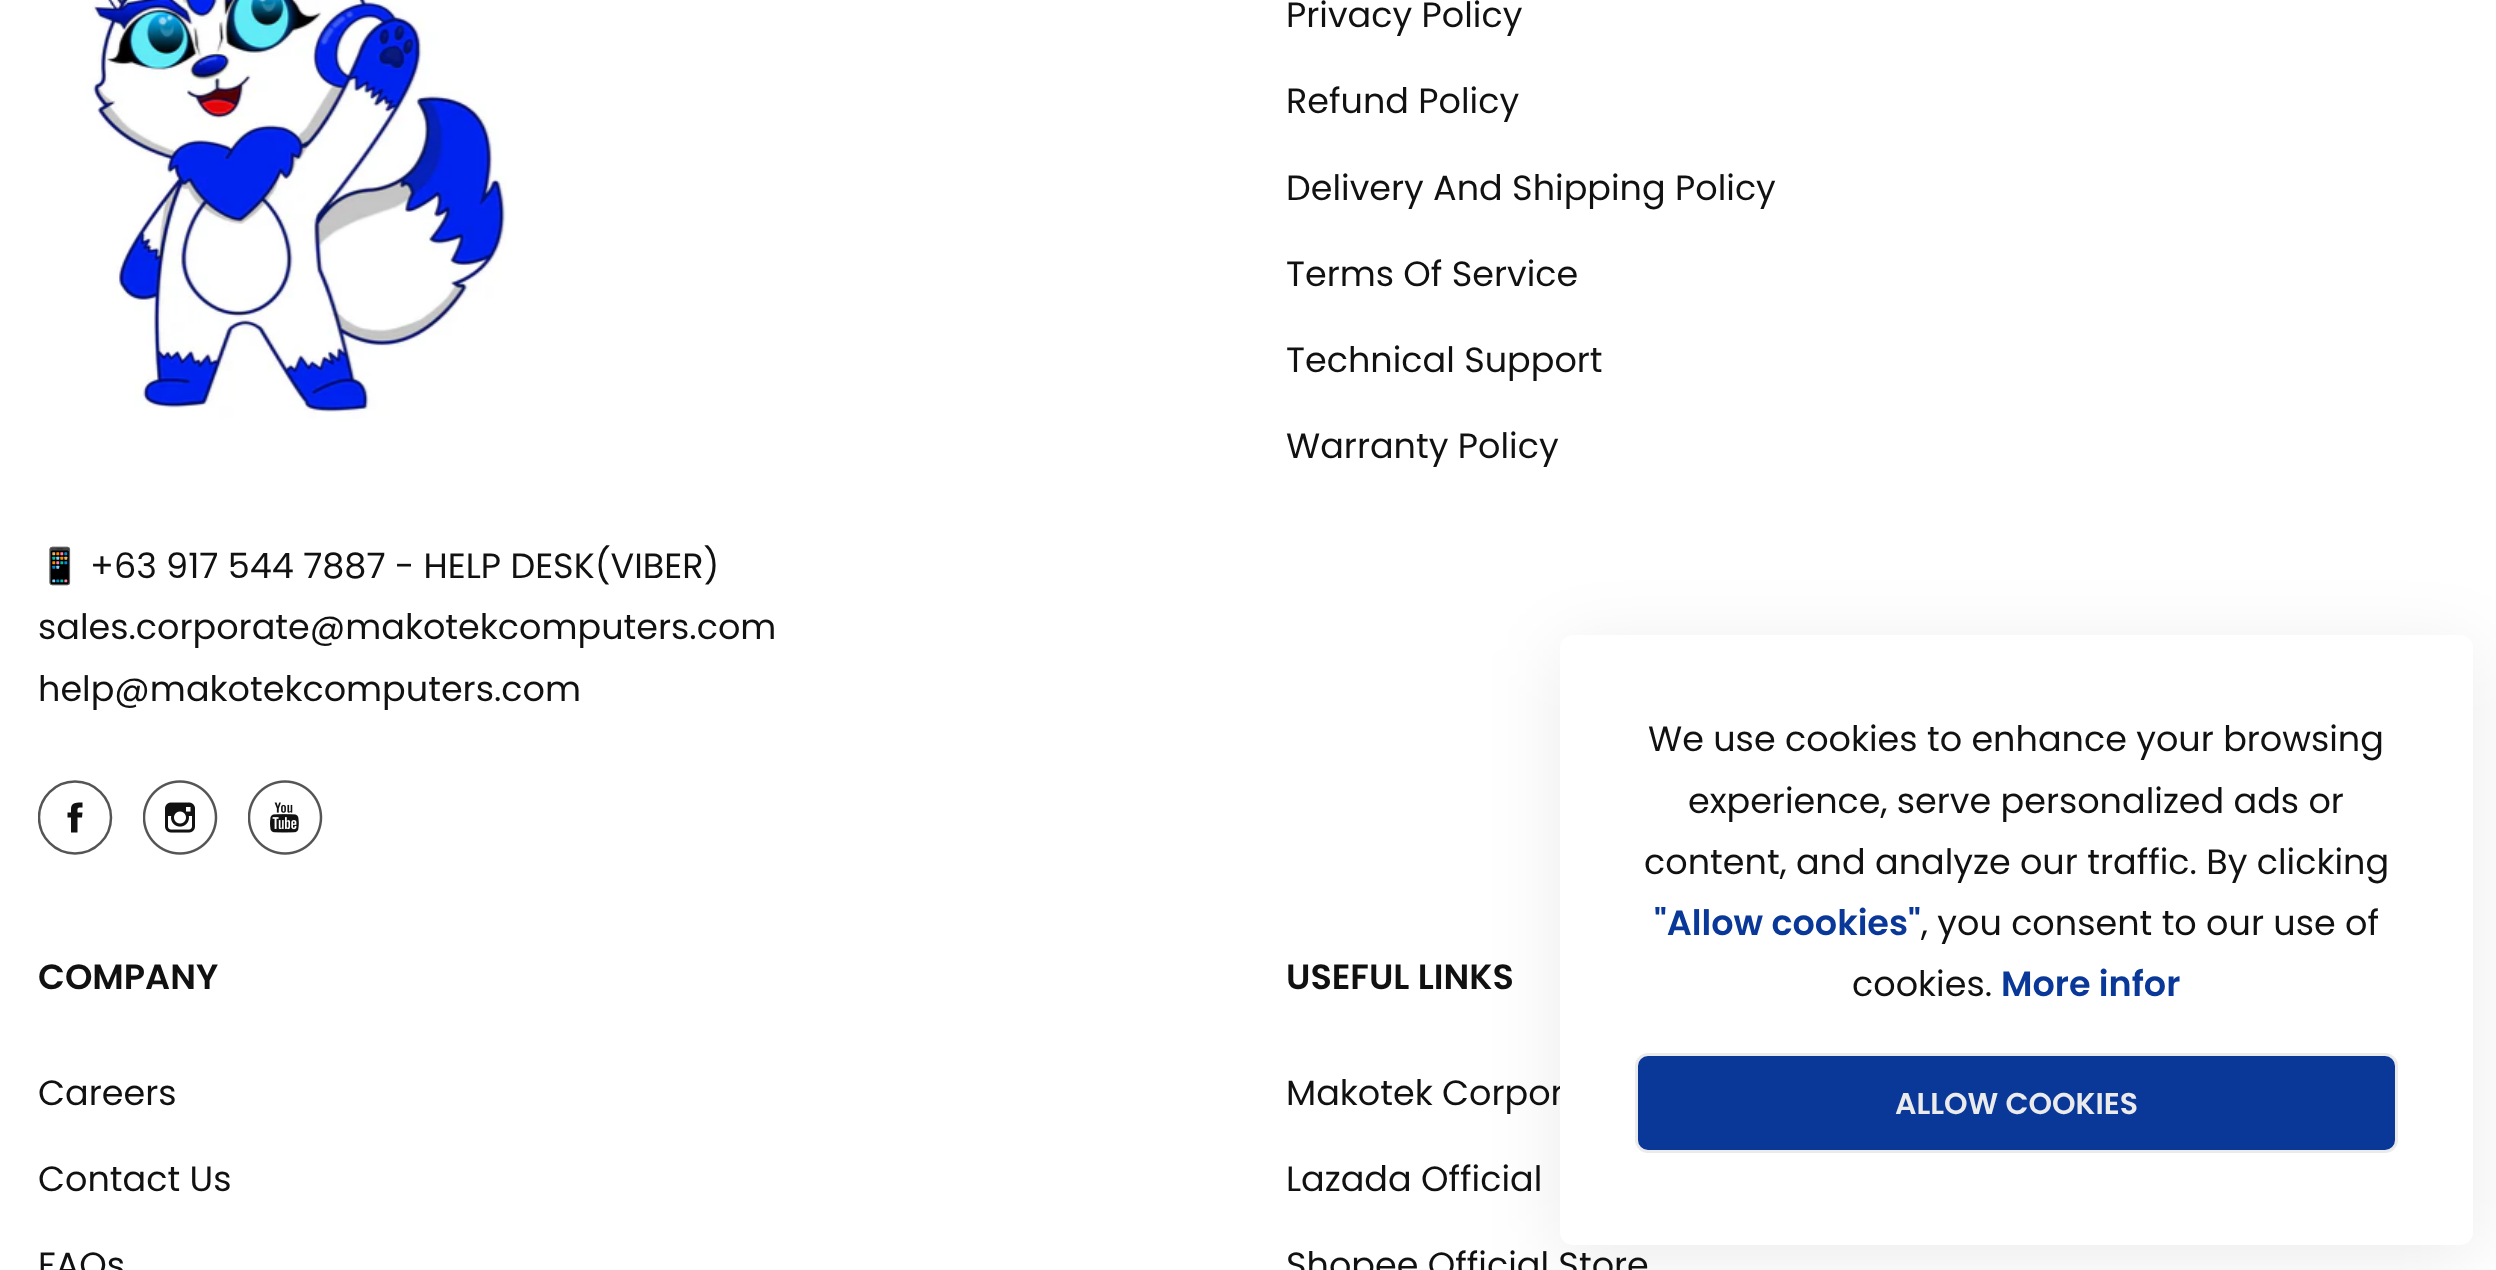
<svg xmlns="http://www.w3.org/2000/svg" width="2496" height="1270">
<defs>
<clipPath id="clip1"><rect x="38" y="780" width="75" height="75"/></clipPath>
</defs>
<rect width="100%" height="100%" fill="#fff"/>
<text x="1286" y="27" style="font-family:Poppins;font-size:35px;fill:#111">Privacy Policy</text>
<text x="1286" y="113" style="font-family:Poppins;font-size:35px;fill:#111">Refund Policy</text>
<text x="1286" y="200" style="font-family:Poppins;font-size:35px;fill:#111">Delivery And Shipping Policy</text>
<text x="1286" y="286" style="font-family:Poppins;font-size:35px;fill:#111">Terms Of Service</text>
<text x="1286" y="372" style="font-family:Poppins;font-size:35px;fill:#111">Technical Support</text>
<text x="1286" y="458" style="font-family:Poppins;font-size:35px;fill:#111">Warranty Policy</text>
<image x="86" y="0" width="421" height="419" href="media/1.png"/>
<text x="38" y="578" style="font-family:Noto Color Emoji;font-size:35px;fill:#111">📱</text>
<text x="90" y="578" style="font-family:Poppins;font-size:35px;fill:#111">+63 917 544 7887 - HELP DESK(VIBER)</text>
<text x="38" y="639" style="font-family:Poppins;font-size:35px;fill:#111">sales.corporate@makotekcomputers.com</text>
<text x="38" y="701" style="font-family:Poppins;font-size:35px;fill:#111">help@makotekcomputers.com</text>
<g clip-path="url(#clip1)">
<circle cx="75" cy="817.5" r="36" fill="none" stroke="#555" stroke-width="2.5"/>
</g>
<path d="M71 809v3.5h-3.5v5h3.5v15h6.5v-15h4.5l.5-5h-5c0-5-.5-5 5-5v-5c-5.5 0-11.5-.5-11.5 6.5z" fill="#111"/>
<image x="143" y="780" width="75" height="75" href="media/2.png"/>
<image x="248" y="780" width="75" height="75" href="media/3.png"/>
<text x="38" y="989" style="font-family:Poppins;font-size:35px;font-weight:600;fill:#111">COMPANY</text>
<text x="38" y="1105" style="font-family:Poppins;font-size:35px;fill:#111">Careers</text>
<text x="38" y="1191" style="font-family:Poppins;font-size:35px;fill:#111">Contact Us</text>
<text x="38" y="1277" style="font-family:Poppins;font-size:35px;fill:#111">FAQs</text>
<text x="1286" y="989" style="font-family:Poppins;font-size:35px;font-weight:600;fill:#111">USEFUL LINKS</text>
<text x="1286" y="1105" style="font-family:Poppins;font-size:35px;fill:#111">Makotek Corpor</text>
<text x="1286" y="1191" style="font-family:Poppins;font-size:35px;fill:#111">Lazada Official</text>
<text x="1286" y="1277" style="font-family:Poppins;font-size:35px;fill:#111">Shopee Official Store</text>
<rect x="1560" y="648" width="913" height="610" rx="13" fill="#00000014" filter="blur(37.5px)"/>
<rect x="1560" y="635" width="913" height="610" rx="13" fill="#fff"/>
<text x="1648" y="751" style="font-family:Poppins;font-size:35px;fill:#111">We use cookies to enhance your browsing</text>
<text x="1688" y="813" style="font-family:Poppins;font-size:35px;fill:#111">experience, serve personalized ads or</text>
<text x="1644" y="874" style="font-family:Poppins;font-size:35px;fill:#111">content, and analyze our traffic. By clicking</text>
<text x="1654" y="935" style="font-family:Poppins;font-size:35px;font-weight:600;fill:#093899">"Allow cookies"</text>
<text x="1921" y="935" style="font-family:Poppins;font-size:35px;fill:#111">, you consent to our use of</text>
<text x="1852" y="996" style="font-family:Poppins;font-size:35px;fill:#111">cookies.</text>
<text x="2001" y="996" style="font-family:Poppins;font-size:35px;font-weight:600;fill:#093899">More infor</text>
<rect x="1636.5" y="1054.5" width="760" height="97" rx="11.5" fill="#093899" stroke="#ebebeb" stroke-width="3"/>
<text x="1895" y="1114" style="font-family:Poppins;font-size:30px;font-weight:600;fill:#ebebeb">ALLOW COOKIES</text>
</svg>
